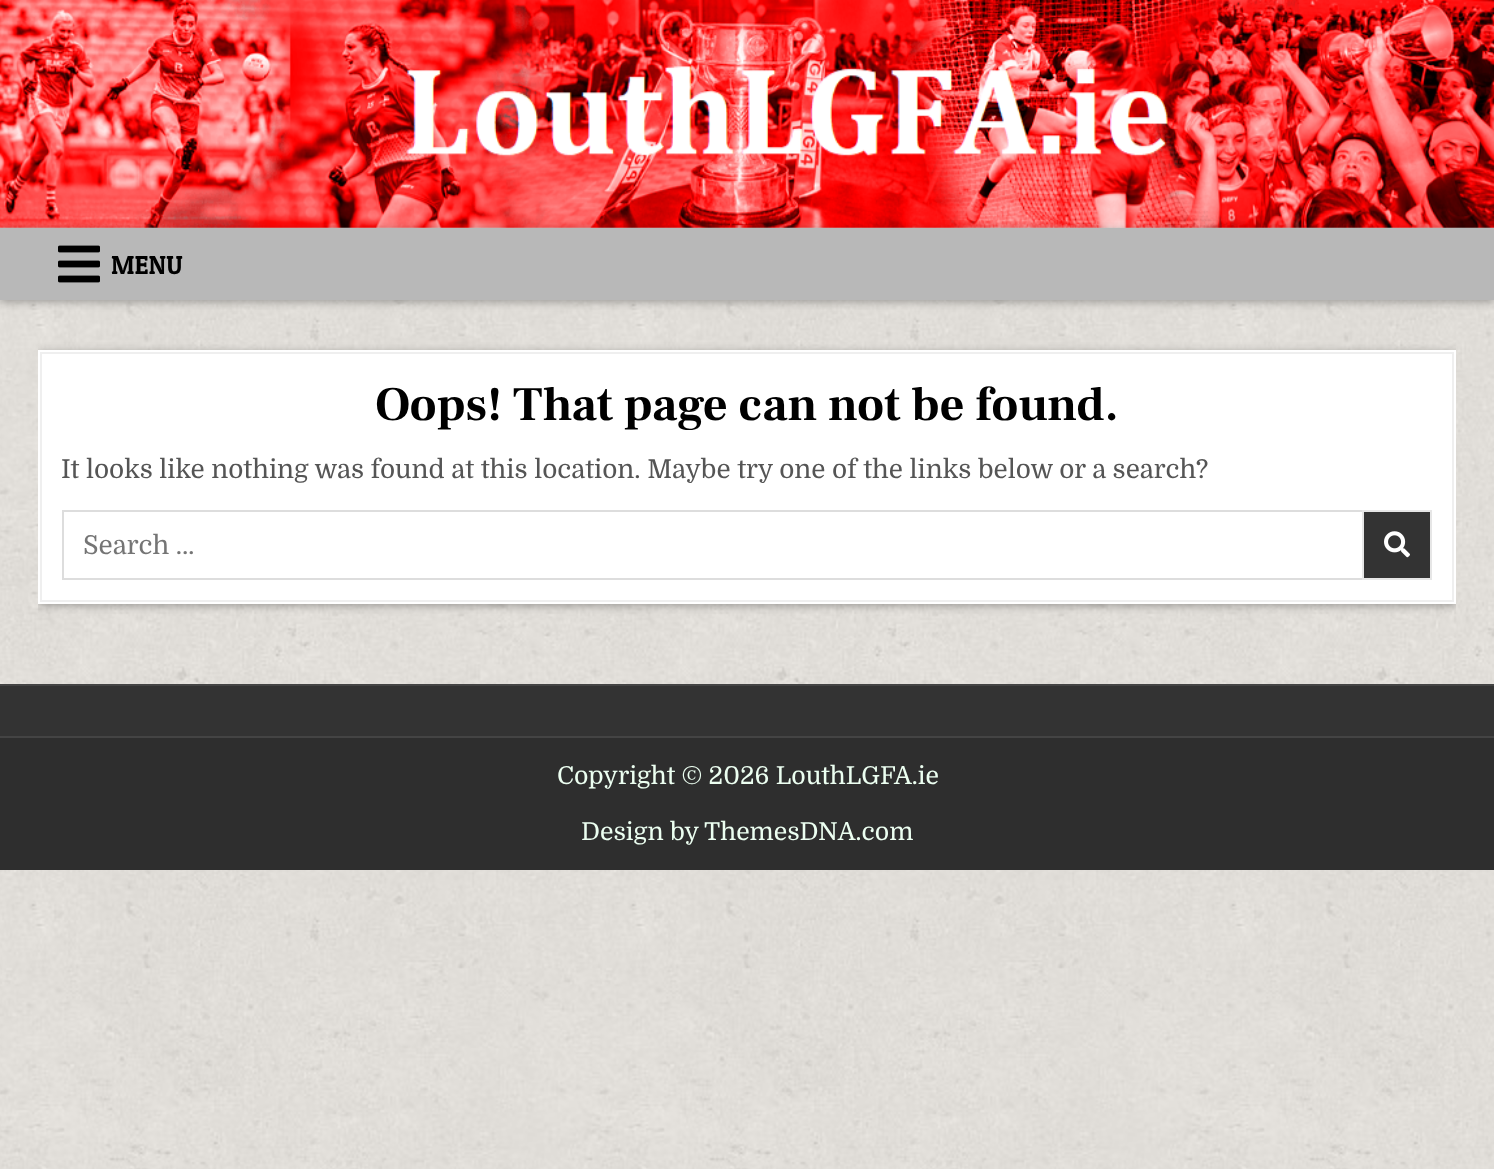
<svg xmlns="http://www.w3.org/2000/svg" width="1494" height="1169">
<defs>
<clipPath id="clip1"><rect x="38" y="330" width="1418" height="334"/></clipPath>
<clipPath id="clip2"><rect x="70" y="382" width="1354" height="48"/></clipPath>
</defs>
<rect width="100%" height="100%" fill="#fff"/>
<image x="0" y="227" width="1494" height="942" href="media/1.png"/>
<image x="0" y="0" width="1494" height="228" href="media/2.png"/>
<rect y="230" width="1494" height="72" fill="#0000004d" filter="blur(4px)"/>
<rect y="228" width="1494" height="72" fill="#b8b8b8"/>
<image x="58" y="245" width="42" height="38" href="media/3.png"/>
<text x="111" y="274" style="font-family:Patua One;font-size:26px;fill:#000">MENU</text>
<g clip-path="url(#clip1)">
<rect x="38" y="352" width="1418" height="254" fill="#0000004d" filter="blur(4px)"/>
</g>
<rect x="38" y="350" width="1418" height="254" fill="#fff"/>
<rect x="41" y="353" width="1412" height="248" fill="none" stroke="#efefef" stroke-width="2"/>
<g clip-path="url(#clip2)">
<text x="375" y="420" style="font-family:Frank Ruhl Libre;font-size:48px;font-weight:bold;fill:#000">Oops! That page can not be found.</text>
</g>
<text x="61" y="478" style="font-family:Domine;font-size:26px;fill:#555">It looks like nothing was found at this location. Maybe try one of the links below or a search?</text>
<rect x="63" y="511" width="1368" height="68" fill="none" stroke="#ddd" stroke-width="2"/>
<text x="83" y="554" style="font-family:Domine;font-size:26px;fill:#757575">Search …</text>
<rect x="1363" y="511" width="68" height="68" fill="#333" stroke="#e6e6e6" stroke-width="2"/>
<image x="1384" y="531" width="26" height="27" href="media/4.png"/>
<rect y="686" width="1494" height="50" fill="#333"/>
<rect y="684" width="1494" height="2" fill="#444"/>
<rect y="738" width="1494" height="132" fill="#2e2e2e"/>
<rect y="736" width="1494" height="2" fill="#444"/>
<text x="557" y="784" style="font-family:Domine;font-size:24.75px;fill:#ecfff1">Copyright © 2026 LouthLGFA.ie</text>
<text x="581" y="840" style="font-family:Domine;font-size:24.75px;fill:#ecfff1">Design by ThemesDNA.com</text>
</svg>
